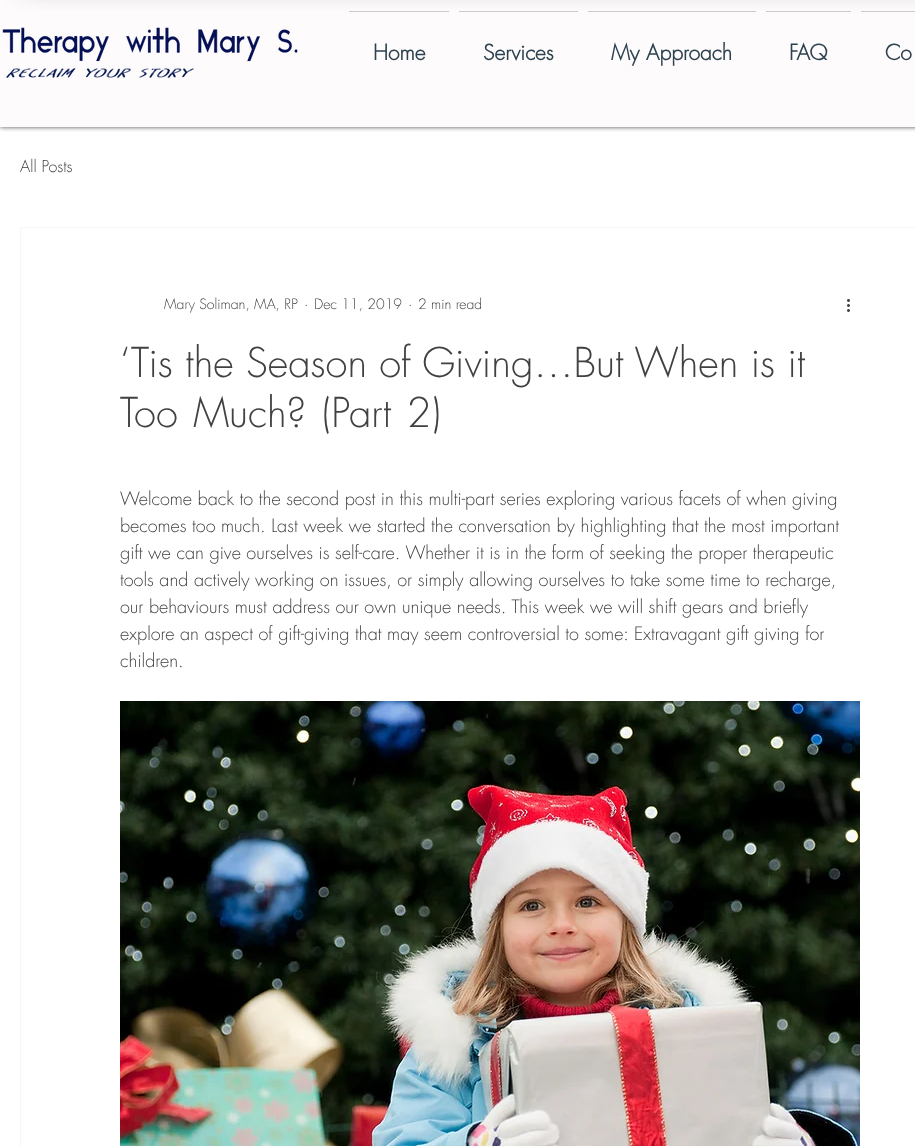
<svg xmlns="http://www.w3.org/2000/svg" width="915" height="1146">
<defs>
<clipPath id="clip1"><rect x="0" y="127" width="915" height="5"/></clipPath>
</defs>
<rect width="100%" height="100%" fill="#fdfbfc"/>
<image x="3" y="0" width="97" height="11" href="media/1.png"/>
<image x="100" y="0" width="780" height="11" href="media/2.png"/>
<image x="880" y="0" width="35" height="11" href="media/3.png"/>
<rect y="127" width="915" height="1019" fill="#fff"/>
<g clip-path="url(#clip1)">
<rect width="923" height="127" fill="#000000b3" filter="blur(2.5px)"/>
</g>
<image x="2" y="27" width="296" height="51" href="media/4.png"/>
<rect x="349" y="11" width="100" height="1" fill="#cacaca"/>
<text x="373" y="60" style="font-family:futura;font-size:21px;font-weight:bold;fill:#2d424f">Home</text>
<rect x="459" y="11" width="119" height="1" fill="#cacaca"/>
<text x="483" y="60" style="font-family:futura;font-size:21px;font-weight:bold;fill:#2d424f">Services</text>
<rect x="588" y="11" width="168" height="1" fill="#cacaca"/>
<text x="611" y="60" style="font-family:futura;font-size:21px;font-weight:bold;fill:#2d424f">My Approach</text>
<rect x="766" y="11" width="85" height="1" fill="#cacaca"/>
<text x="789" y="60" style="font-family:futura;font-size:21px;font-weight:bold;fill:#2d424f">FAQ</text>
<rect x="861" y="11" width="54" height="1" fill="#cacaca"/>
<text x="885" y="60" style="font-family:futura;font-size:21px;font-weight:bold;fill:#2d424f">Co</text>
<text x="20" y="172" style="font-family:futura;font-size:16px;font-weight:300;fill:#414141">All Posts</text>
<rect x="20.5" y="227.5" width="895" height="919" fill="none" stroke="#f5f5f5"/>
<text x="164" y="309" style="font-family:futura;font-size:14px;font-weight:300;fill:#414141">Mary Soliman, MA, RP</text>
<text x="304" y="309" style="font-family:futura;font-size:14px;font-weight:300;fill:#414141">·</text>
<text x="314" y="309" style="font-family:futura;font-size:14px;font-weight:300;fill:#414141">Dec 11, 2019</text>
<text x="408" y="309" style="font-family:futura;font-size:14px;font-weight:300;fill:#414141">·</text>
<text x="418" y="309" style="font-family:futura;font-size:14px;font-weight:300;fill:#414141">2 min read</text>
<image x="847" y="299" width="3" height="13" href="media/5.png"/>
<text x="120" y="377" style="font-family:futura;font-size:40px;font-weight:300;fill:#414141">‘Tis the Season of Giving…But When is it</text>
<text x="120" y="427" word-spacing="3" style="font-family:futura;font-size:40px;font-weight:300;fill:#414141">Too Much? (Part 2)</text>
<text x="120" y="505" style="font-family:futura;font-size:18px;font-weight:300;fill:#414141">Welcome back to the second post in this multi-part series exploring various facets of when giving</text>
<text x="120" y="532" style="font-family:futura;font-size:18px;font-weight:300;fill:#414141">becomes too much. Last week we started the conversation by highlighting that the most important</text>
<text x="120" y="559" style="font-family:futura;font-size:18px;font-weight:300;fill:#414141">gift we can give ourselves is self-care. Whether it is in the form of seeking the proper therapeutic</text>
<text x="120" y="586" style="font-family:futura;font-size:18px;font-weight:300;fill:#414141">tools and actively working on issues, or simply allowing ourselves to take some time to recharge,</text>
<text x="120" y="613" style="font-family:futura;font-size:18px;font-weight:300;fill:#414141">our behaviours must address our own unique needs. This week we will shift gears and briefly</text>
<text x="120" y="640" style="font-family:futura;font-size:18px;font-weight:300;fill:#414141">explore an aspect of gift-giving that may seem controversial to some: Extravagant gift giving for</text>
<text x="120" y="667" style="font-family:futura;font-size:18px;font-weight:300;fill:#414141">children.</text>
<image x="120" y="701" width="740" height="445" href="media/6.png"/>
</svg>
